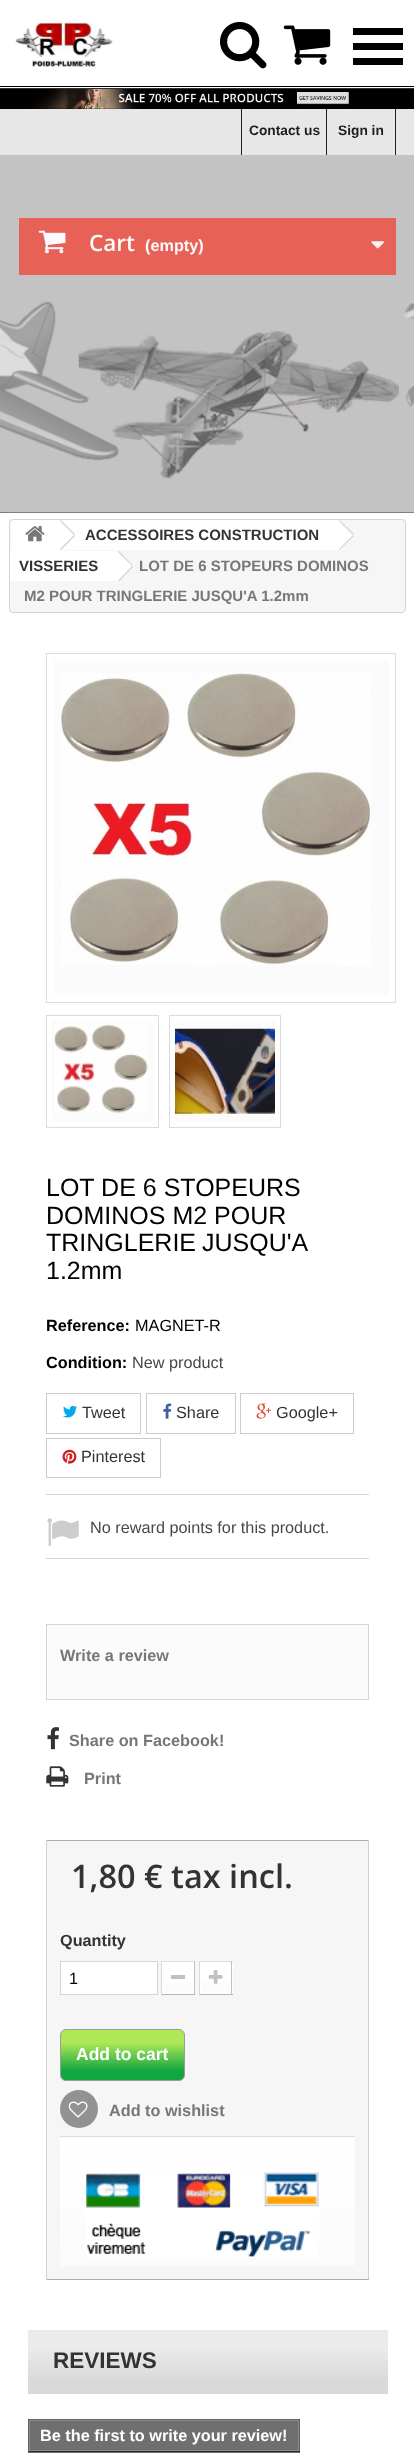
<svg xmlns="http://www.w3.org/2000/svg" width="414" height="2455">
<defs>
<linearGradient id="g1" gradientUnits="userSpaceOnUse" x1="178" y1="1964" x2="178" y2="1993"><stop offset="0" stop-color="#fff"/><stop offset="1" stop-color="#fbfbfb"/></linearGradient>
<linearGradient id="g2" gradientUnits="userSpaceOnUse" x1="216" y1="1964" x2="216" y2="1993"><stop offset="0" stop-color="#fff"/><stop offset="1" stop-color="#fbfbfb"/></linearGradient>
<linearGradient id="g3" gradientUnits="userSpaceOnUse" x1="123" y1="2081" x2="123" y2="2029"><stop offset="0.19" stop-color="#12a640"/><stop offset="0.74" stop-color="#aee856"/></linearGradient>
<linearGradient id="g4" gradientUnits="userSpaceOnUse" x1="208" y1="2009" x2="208" y2="2138"><stop offset="0" stop-color="#fff"/><stop offset="1" stop-color="#fbfbfb"/></linearGradient>
<linearGradient id="g5" gradientUnits="userSpaceOnUse" x1="208" y1="2138" x2="208" y2="2266"><stop offset="0" stop-color="#fff"/><stop offset="1" stop-color="#fbfbfb"/></linearGradient>
<linearGradient id="g6" gradientUnits="userSpaceOnUse" x1="208" y1="2394" x2="208" y2="2330"><stop offset="0.19" stop-color="#d9d9d9"/><stop offset="0.74" stop-color="#ebebeb"/></linearGradient>
</defs>
<rect width="100%" height="100%" fill="#3f383c"/>
<rect width="414" height="88" fill="#fff"/>
<rect y="86" width="414" height="1" fill="#000"/>
<image x="15" y="19" width="99" height="48" href="media/1.png"/>
<image x="220" y="22" width="47" height="47" href="media/2.png"/>
<image x="283" y="25" width="48" height="40" href="media/3.png"/>
<rect x="353" y="58" width="50" height="7" fill="#000"/>
<rect x="353" y="43" width="50" height="7" fill="#000"/>
<rect x="353" y="28" width="50" height="7" fill="#000"/>
<rect y="88" width="414" height="1" fill="#333"/>
<image x="0" y="155" width="414" height="358" href="media/4.png"/>
<rect y="89" width="414" height="20" fill="#000"/>
<image x="18" y="89" width="379" height="20" href="media/5.png"/>
<rect y="109" width="414" height="46" fill="#e8e7e8"/>
<rect x="241" y="109" width="1" height="46" fill="#1e1e1e"/>
<text x="249" y="135" style="font-family:Liberation Sans;font-size:13.75px;font-weight:bold;fill:#1e1e1e">Contact us</text>
<rect x="395" y="109" width="1" height="46" fill="#1e1e1e"/>
<rect x="326" y="109" width="1" height="46" fill="#1e1e1e"/>
<text x="338" y="135" style="font-family:Liberation Sans;font-size:13.75px;font-weight:bold;fill:#1e1e1e">Sign in</text>
<rect x="19" y="218" width="377" height="57" fill="#e86156"/>
<image x="38" y="230" width="28" height="24" href="media/6.png"/>
<text x="89" y="251" style="font-family:Open Sans;font-size:22.5px;font-weight:600;fill:#f9f9f9">Cart</text>
<text x="145" y="251" style="font-family:Liberation Sans;font-size:16.25px;font-weight:bold;fill:#f9f9f9">(empty)</text>
<image x="371" y="241" width="13" height="8" href="media/7.png"/>
<rect y="513" width="414" height="1942" fill="#fff"/>
<rect x="9.5" y="519.5" width="396" height="93" rx="3.5" fill="#f6f6f6" stroke="#d6d4d4"/>
<path d="M15 520h44v31h-44c-2 0-4-2-4-4v-23c0-2 2-4 4-4z" fill="#fff"/>
<image x="25" y="526" width="20" height="16" href="media/8.png"/>
<rect x="59" y="520" width="279" height="30" fill="#fff"/>
<path d="M61 520l14 14l-1 1l-14-14zm13 15l1 1l-14 14l-1-1z" fill="#d6d4d4"/>
<text x="85" y="540" style="font-family:Liberation Sans;font-size:15px;font-weight:bold;fill:#333">ACCESSOIRES CONSTRUCTION</text>
<path d="M340.5 521l12.5 12c1 1 1 3 0 4l-12.5 12c-1 1-2.5 1-3.5 0l-12.5-12c-1-1-1-3 0-4l12.5-12c1-1 2.5-1 3.5 0z" fill="#fff"/>
<path d="M339.5 520l14.5 14l-1 1l-14-14zm13.5 15l1 1l-14.5 14l-.5-1z" fill="#d6d4d4"/>
<rect x="10" y="551" width="106" height="30" fill="#fff"/>
<text x="19" y="571" style="font-family:Liberation Sans;font-size:15px;font-weight:bold;fill:#333">VISSERIES</text>
<path d="M119.5 552l12.5 12.5c1 1 1 2.5 0 3.5l-12.5 12.5c-1 1-2.5 1-3.5 0l-12-12.5c-1-1-1-2.5 0-3.5l12-12.5c1-1 2.5-1 3.5 0z" fill="#fff"/>
<path d="M119 551l14 14.5l-1 .5l-14-14zm13 15l1 1l-14 14.5l-1-1z" fill="#d6d4d4"/>
<text x="139" y="571" style="font-family:Liberation Sans;font-size:15px;font-weight:bold;fill:#777">LOT DE 6 STOPEURS DOMINOS</text>
<text x="24" y="601" style="font-family:Liberation Sans;font-size:15px;font-weight:bold;fill:#777">M2 POUR TRINGLERIE JUSQU'A 1.2mm</text>
<rect x="46.5" y="653.5" width="349" height="349" fill="none" stroke="#dbdbdb"/>
<rect x="54" y="660" width="335" height="335" fill="#fbfbfb"/>
<image x="61" y="673" width="310" height="292" href="media/9.png"/>
<rect x="46.5" y="1015.5" width="112" height="112" fill="none" stroke="#dbdbdb"/>
<rect x="52" y="1021" width="101" height="101" fill="#fbfbfb"/>
<image x="54" y="1024" width="94" height="89" href="media/10.png"/>
<rect x="169.5" y="1015.5" width="111" height="112" fill="none" stroke="#dbdbdb"/>
<rect x="175" y="1021" width="100" height="101" fill="#fbfbfb"/>
<image x="175" y="1028" width="100" height="87" href="media/11.png"/>
<text x="46" y="1196" style="font-family:Liberation Sans;font-size:25px;fill:#000">LOT DE 6 STOPEURS</text>
<text x="46" y="1224" style="font-family:Liberation Sans;font-size:25px;fill:#000">DOMINOS M2 POUR</text>
<text x="46" y="1251" word-spacing="-1" style="font-family:Liberation Sans;font-size:25px;fill:#000">TRINGLERIE JUSQU'A</text>
<text x="46" y="1279" style="font-family:Liberation Sans;font-size:25px;fill:#000">1.2mm</text>
<text x="46" y="1331" style="font-family:Liberation Sans;font-size:16.25px;font-weight:bold;fill:#000">Reference:</text>
<text x="135" y="1331" style="font-family:Liberation Sans;font-size:16.25px;fill:#000">MAGNET-R</text>
<text x="46" y="1368" style="font-family:Liberation Sans;font-size:16.25px;font-weight:bold;fill:#000">Condition:</text>
<text x="132" y="1368" style="font-family:Liberation Sans;font-size:16.25px;fill:#484848">New product</text>
<rect x="46.5" y="1393.5" width="94" height="40" fill="none" stroke="#ccc"/>
<image x="63" y="1405" width="14" height="13" href="media/12.png"/>
<text x="82" y="1418" style="font-family:Liberation Sans;font-size:16.25px;fill:#333">Tweet</text>
<rect x="146.5" y="1393.5" width="89" height="40" fill="none" stroke="#ccc"/>
<image x="163" y="1403" width="9" height="16" href="media/13.png"/>
<text x="176" y="1418" style="font-family:Liberation Sans;font-size:16.25px;fill:#333">Share</text>
<rect x="240.5" y="1393.5" width="113" height="40" fill="none" stroke="#ccc"/>
<image x="256" y="1403" width="15" height="16" href="media/14.png"/>
<text x="276" y="1418" style="font-family:Liberation Sans;font-size:16.25px;fill:#333">Google+</text>
<rect x="46.5" y="1438.5" width="114" height="39" fill="none" stroke="#ccc"/>
<image x="62" y="1449" width="15" height="15" href="media/15.png"/>
<text x="81" y="1462" style="font-family:Liberation Sans;font-size:16.25px;fill:#333">Pinterest</text>
<rect x="46" y="1494" width="323" height="1" fill="#d6d4d4"/>
<rect x="46" y="1558" width="323" height="1" fill="#d6d4d4"/>
<image x="47" y="1518" width="32" height="28" href="media/16.png"/>
<text x="90" y="1533" style="font-family:Liberation Sans;font-size:16.25px;fill:#484848">No reward points for this product.</text>
<rect x="46.5" y="1624.5" width="322" height="75" fill="#fbfbfb" stroke="#d6d4d4"/>
<text x="60" y="1661" style="font-family:Liberation Sans;font-size:16.25px;font-weight:bold;fill:#777">Write a review</text>
<image x="47" y="1727" width="12" height="23" href="media/17.png"/>
<text x="69" y="1746" style="font-family:Liberation Sans;font-size:16.25px;font-weight:bold;fill:#777">Share on Facebook!</text>
<image x="46" y="1766" width="23" height="21" href="media/18.png"/>
<text x="84" y="1784" style="font-family:Liberation Sans;font-size:16.25px;font-weight:bold;fill:#777">Print</text>
<rect x="47" y="1841" width="321" height="438" fill="#f6f6f6"/>
<rect x="46" y="1840" width="323" height="1" fill="#b0afaf"/>
<rect x="368" y="1840" width="1" height="440" fill="#d2d0d0"/>
<rect x="46" y="2279" width="323" height="1" fill="#b0afaf"/>
<rect x="46" y="1840" width="1" height="440" fill="#d2d0d0"/>
<text x="71" y="1888" style="font-family:Open Sans;font-size:32.5px;font-weight:600;fill:#333">1,80 € tax incl.</text>
<text x="60" y="1946" style="font-family:Liberation Sans;font-size:16.25px;font-weight:bold;fill:#333">Quantity</text>
<rect x="60.5" y="1961.5" width="97" height="33" fill="#fff" stroke="#d6d4d4"/>
<text x="69" y="1984" style="font-family:Liberation Sans;font-size:16.25px;fill:#000">1</text>
<rect x="162" y="1962" width="32" height="32" fill="#fff"/>
<rect x="161" y="1961" width="34" height="1" fill="#dedcdc"/>
<rect x="194" y="1961" width="1" height="34" fill="#c1bfbf"/>
<rect x="161" y="1994" width="34" height="1" fill="#b5b4b4"/>
<rect x="161" y="1961" width="1" height="34" fill="#dad8d8"/>
<rect x="164" y="1982" width="29" height="11" fill="url(#g1)"/>
<rect x="171" y="1975" width="14" height="4" fill="#c0c0c0"/>
<rect x="200" y="1962" width="33" height="32" fill="#fff"/>
<rect x="199" y="1961" width="34" height="1" fill="#dedcdc"/>
<rect x="231" y="1961" width="1" height="34" fill="#c1bfbf"/>
<rect x="199" y="1994" width="34" height="1" fill="#b5b4b4"/>
<rect x="199" y="1961" width="1" height="34" fill="#dad8d8"/>
<rect x="201" y="1982" width="29" height="11" fill="url(#g2)"/>
<image x="208" y="1970" width="15" height="14" href="media/19.png"/>
<rect x="60.5" y="2029.5" width="124" height="51" rx="5.5" fill="url(#g3)" stroke="#9b9d9a"/>
<text x="76" y="2060" style="font-family:Liberation Sans;font-size:17.5px;font-weight:bold;fill:#fff">Add to cart</text>
<circle cx="79" cy="2109" r="19" fill="#929292"/>
<image x="68" y="2101" width="20" height="17" href="media/20.png"/>
<text x="109" y="2116" style="font-family:Liberation Sans;font-size:16.25px;font-weight:bold;fill:#777">Add to wishlist</text>
<rect x="60" y="2137" width="295" height="1" fill="url(#g4)"/>
<rect x="60" y="2138" width="295" height="128" fill="url(#g5)"/>
<rect x="60" y="2136" width="295" height="1" fill="#dfdede"/>
<image x="86" y="2172" width="233" height="85" href="media/21.png"/>
<rect x="28" y="2330" width="360" height="64" fill="url(#g6)"/>
<text x="53" y="2368" style="font-family:Liberation Sans;font-size:22.5px;font-weight:bold;fill:#333">REVIEWS</text>
<rect x="29" y="2421" width="270" height="32" fill="#6f6f6f"/>
<rect x="28" y="2419" width="272" height="1" fill="#666"/>
<rect x="299" y="2419" width="1" height="34" fill="#5f5f5f"/>
<rect x="28" y="2451" width="272" height="1" fill="#292929"/>
<rect x="28" y="2419" width="1" height="34" fill="#5f5f5f"/>
<rect x="29.5" y="2420.5" width="269" height="30" fill="none" stroke="#8b8a8a"/>
<text x="40" y="2441" style="font-family:Liberation Sans;font-size:16.25px;font-weight:bold;fill:#fff">Be the first to write your review!</text>
</svg>
